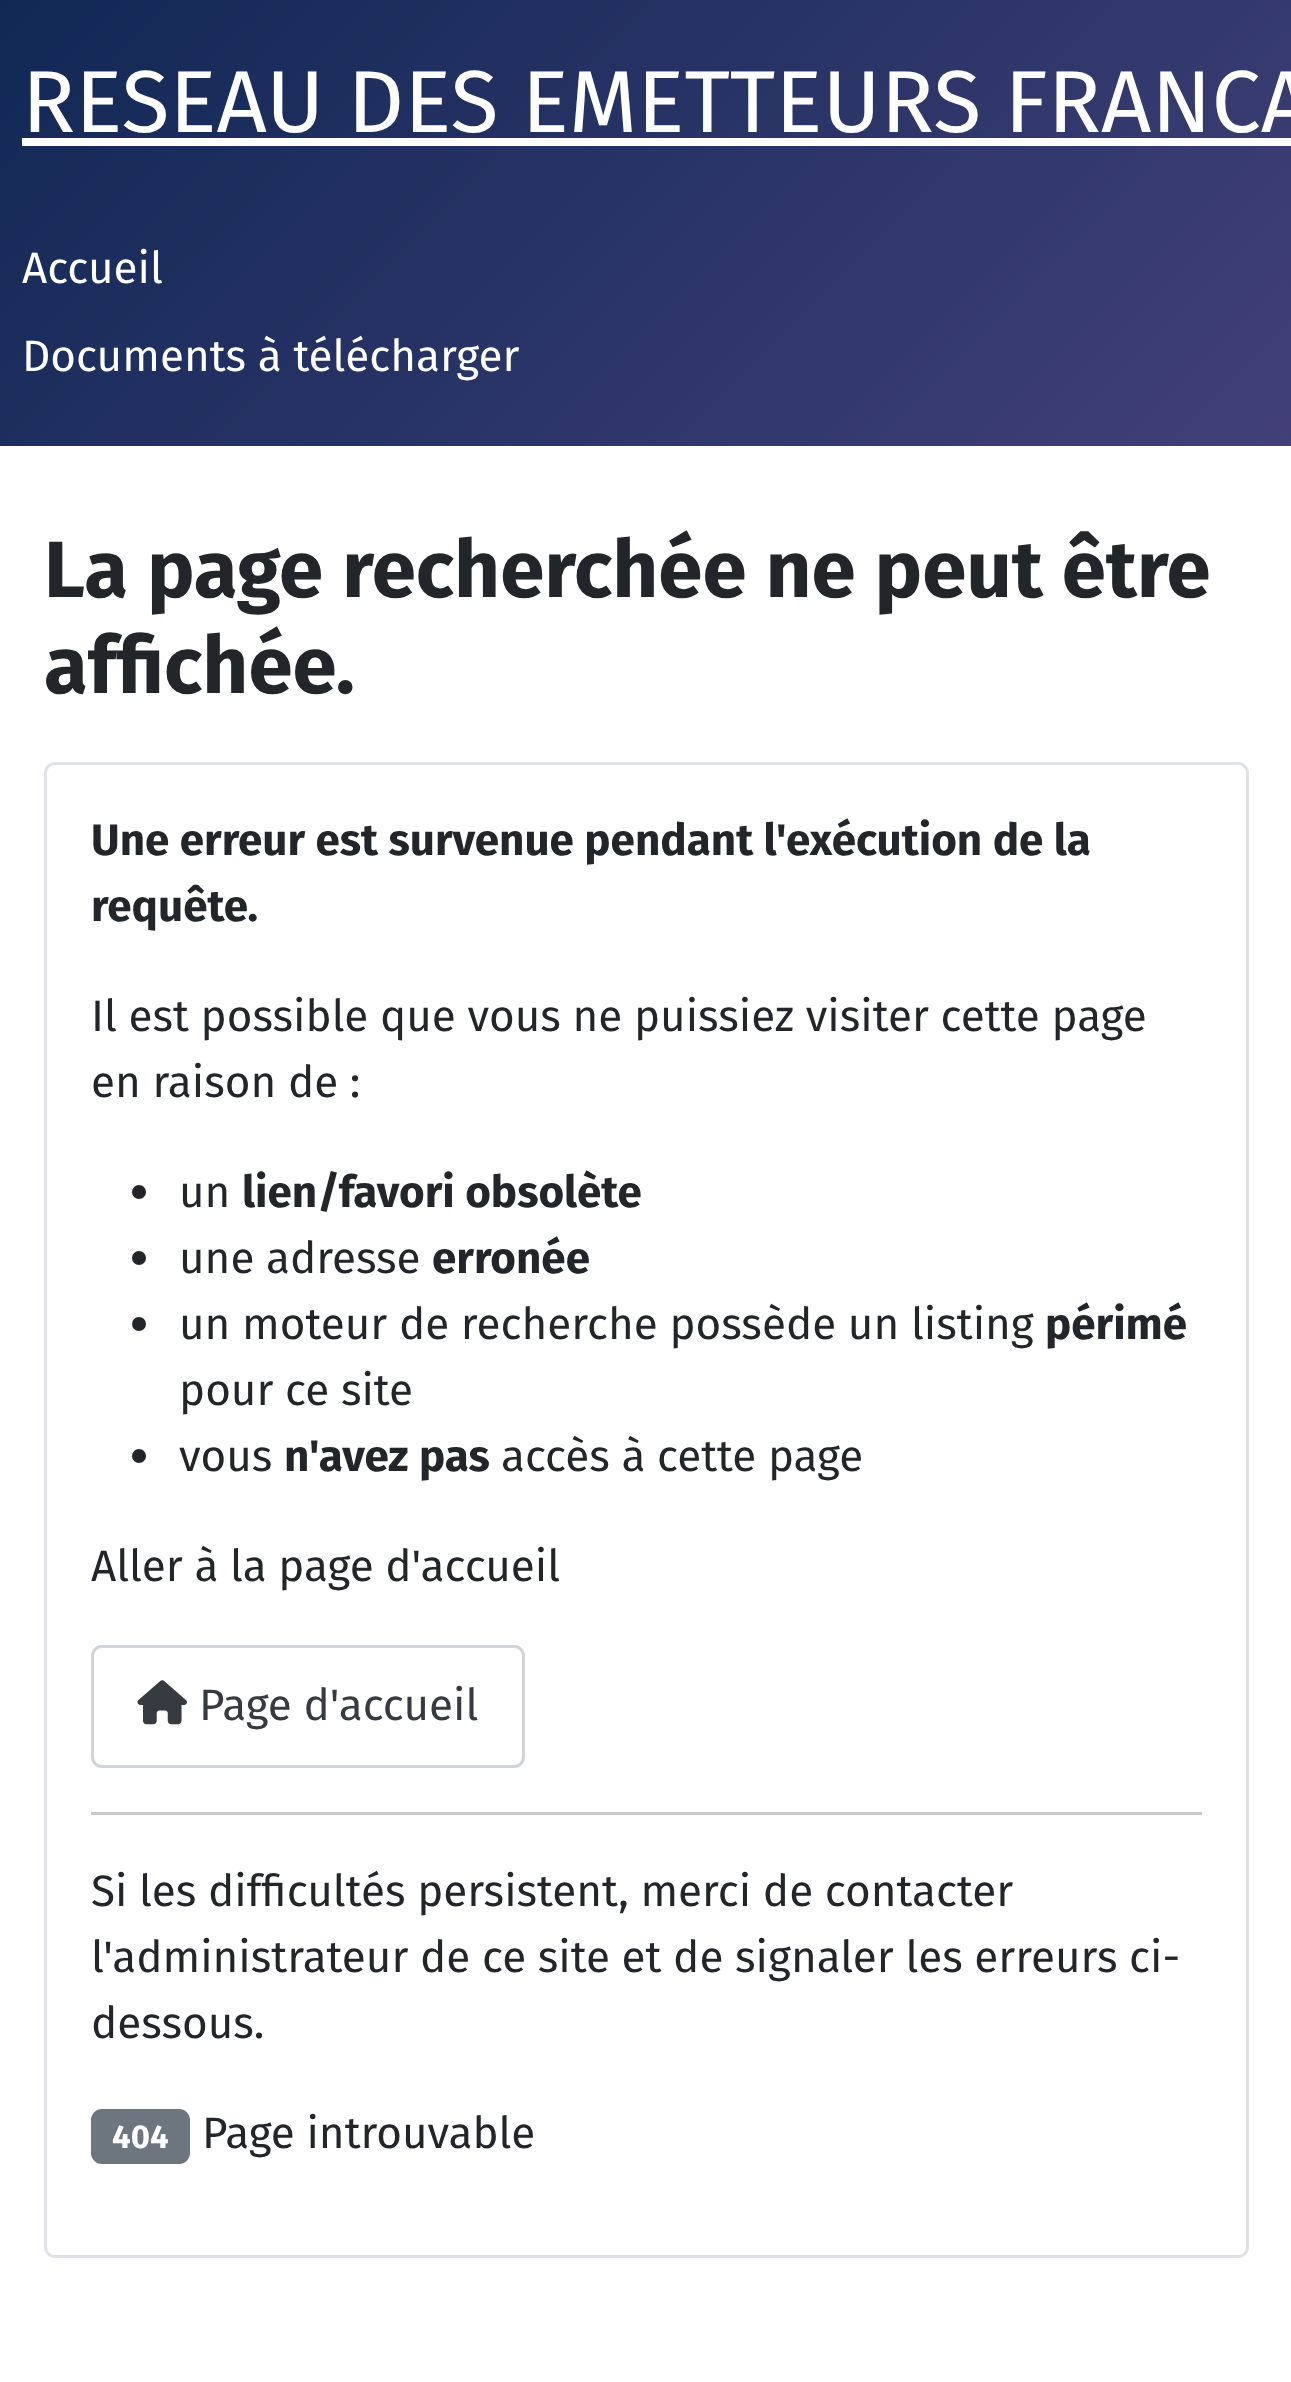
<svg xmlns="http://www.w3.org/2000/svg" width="1291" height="2382">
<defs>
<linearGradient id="g1" gradientUnits="userSpaceOnUse" x1="212" y1="-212" x2="1081" y2="657"><stop offset="0" stop-color="#112855"/><stop offset="1" stop-color="#424077"/></linearGradient>
</defs>
<rect width="100%" height="100%" fill="#fff"/>
<rect width="1291" height="446" fill="url(#g1)"/>
<text x="22" y="132" style="font-family:Fira Sans;font-size:88px;fill:#fff">RESEAU DES EMETTEURS FRANCA</text>
<rect x="22" y="138" width="1269" height="8" fill="#fff"/>
<text x="22" y="283" style="font-family:Fira Sans;font-size:44px;fill:#fff">Accueil</text>
<text x="22" y="371" style="font-family:Fira Sans;font-size:44px;fill:#fff">Documents à télécharger</text>
<text x="44" y="597" style="font-family:Fira Sans;font-size:79.9px;font-weight:bold;fill:#22262a">La page recherchée ne peut être</text>
<text x="44" y="693" style="font-family:Fira Sans;font-size:79.9px;font-weight:bold;fill:#22262a">affichée.</text>
<rect x="45.5" y="763.5" width="1202" height="1493" rx="9.5" fill="none" stroke="#dfe3e7" stroke-width="3"/>
<text x="91" y="855" style="font-family:Fira Sans;font-size:44px;font-weight:bold;fill:#22262a">Une erreur est survenue pendant l'exécution de la</text>
<text x="91" y="921" style="font-family:Fira Sans;font-size:44px;font-weight:bold;fill:#22262a">requête.</text>
<text x="91" y="1031" style="font-family:Fira Sans;font-size:44px;fill:#22262a">Il est possible que vous ne puissiez visiter cette page</text>
<text x="91" y="1097" style="font-family:Fira Sans;font-size:44px;fill:#22262a">en raison de :</text>
<circle cx="139" cy="1192" r="7" fill="#22262a"/>
<text x="179" y="1207" style="font-family:Fira Sans;font-size:44px;fill:#22262a">un</text>
<text x="242" y="1207" style="font-family:Fira Sans;font-size:44px;font-weight:bold;fill:#22262a">lien/favori obsolète</text>
<circle cx="139" cy="1258" r="7" fill="#22262a"/>
<text x="179" y="1273" style="font-family:Fira Sans;font-size:44px;fill:#22262a">une adresse</text>
<text x="432" y="1273" style="font-family:Fira Sans;font-size:44px;font-weight:bold;fill:#22262a">erronée</text>
<circle cx="139" cy="1324" r="7" fill="#22262a"/>
<text x="179" y="1339" style="font-family:Fira Sans;font-size:44px;fill:#22262a">un moteur de recherche possède un listing</text>
<text x="1045" y="1339" style="font-family:Fira Sans;font-size:44px;font-weight:bold;fill:#22262a">périmé</text>
<text x="179" y="1405" style="font-family:Fira Sans;font-size:44px;fill:#22262a">pour ce site</text>
<circle cx="139" cy="1456" r="7" fill="#22262a"/>
<text x="179" y="1471" style="font-family:Fira Sans;font-size:44px;fill:#22262a">vous</text>
<text x="284" y="1471" style="font-family:Fira Sans;font-size:44px;font-weight:bold;fill:#22262a">n'avez pas</text>
<text x="501" y="1471" style="font-family:Fira Sans;font-size:44px;fill:#22262a">accès à cette page</text>
<text x="91" y="1581" style="font-family:Fira Sans;font-size:44px;fill:#22262a">Aller à la page d'accueil</text>
<rect x="92.5" y="1646.5" width="431" height="120" rx="9.5" fill="none" stroke="#ced4da" stroke-width="3"/>
<image x="137" y="1680" width="50" height="45" href="media/1.png"/>
<text x="199" y="1720" style="font-family:Fira Sans;font-size:44px;fill:#353b41">Page d'accueil</text>
<rect x="91" y="1812" width="1111" height="3" fill="#c8c9ca"/>
<text x="91" y="1906" style="font-family:Fira Sans;font-size:44px;fill:#22262a">Si les difficultés persistent, merci de contacter</text>
<text x="91" y="1972" style="font-family:Fira Sans;font-size:44px;fill:#22262a">l'administrateur de ce site et de signaler les erreurs ci-</text>
<text x="91" y="2038" style="font-family:Fira Sans;font-size:44px;fill:#22262a">dessous.</text>
<rect x="91" y="2109" width="99" height="55" rx="11" fill="#6d757e"/>
<text x="112" y="2148" style="font-family:Fira Sans;font-size:33px;font-weight:bold;fill:#fff">404</text>
<text x="202" y="2148" style="font-family:Fira Sans;font-size:44px;fill:#22262a">Page introuvable</text>
</svg>
